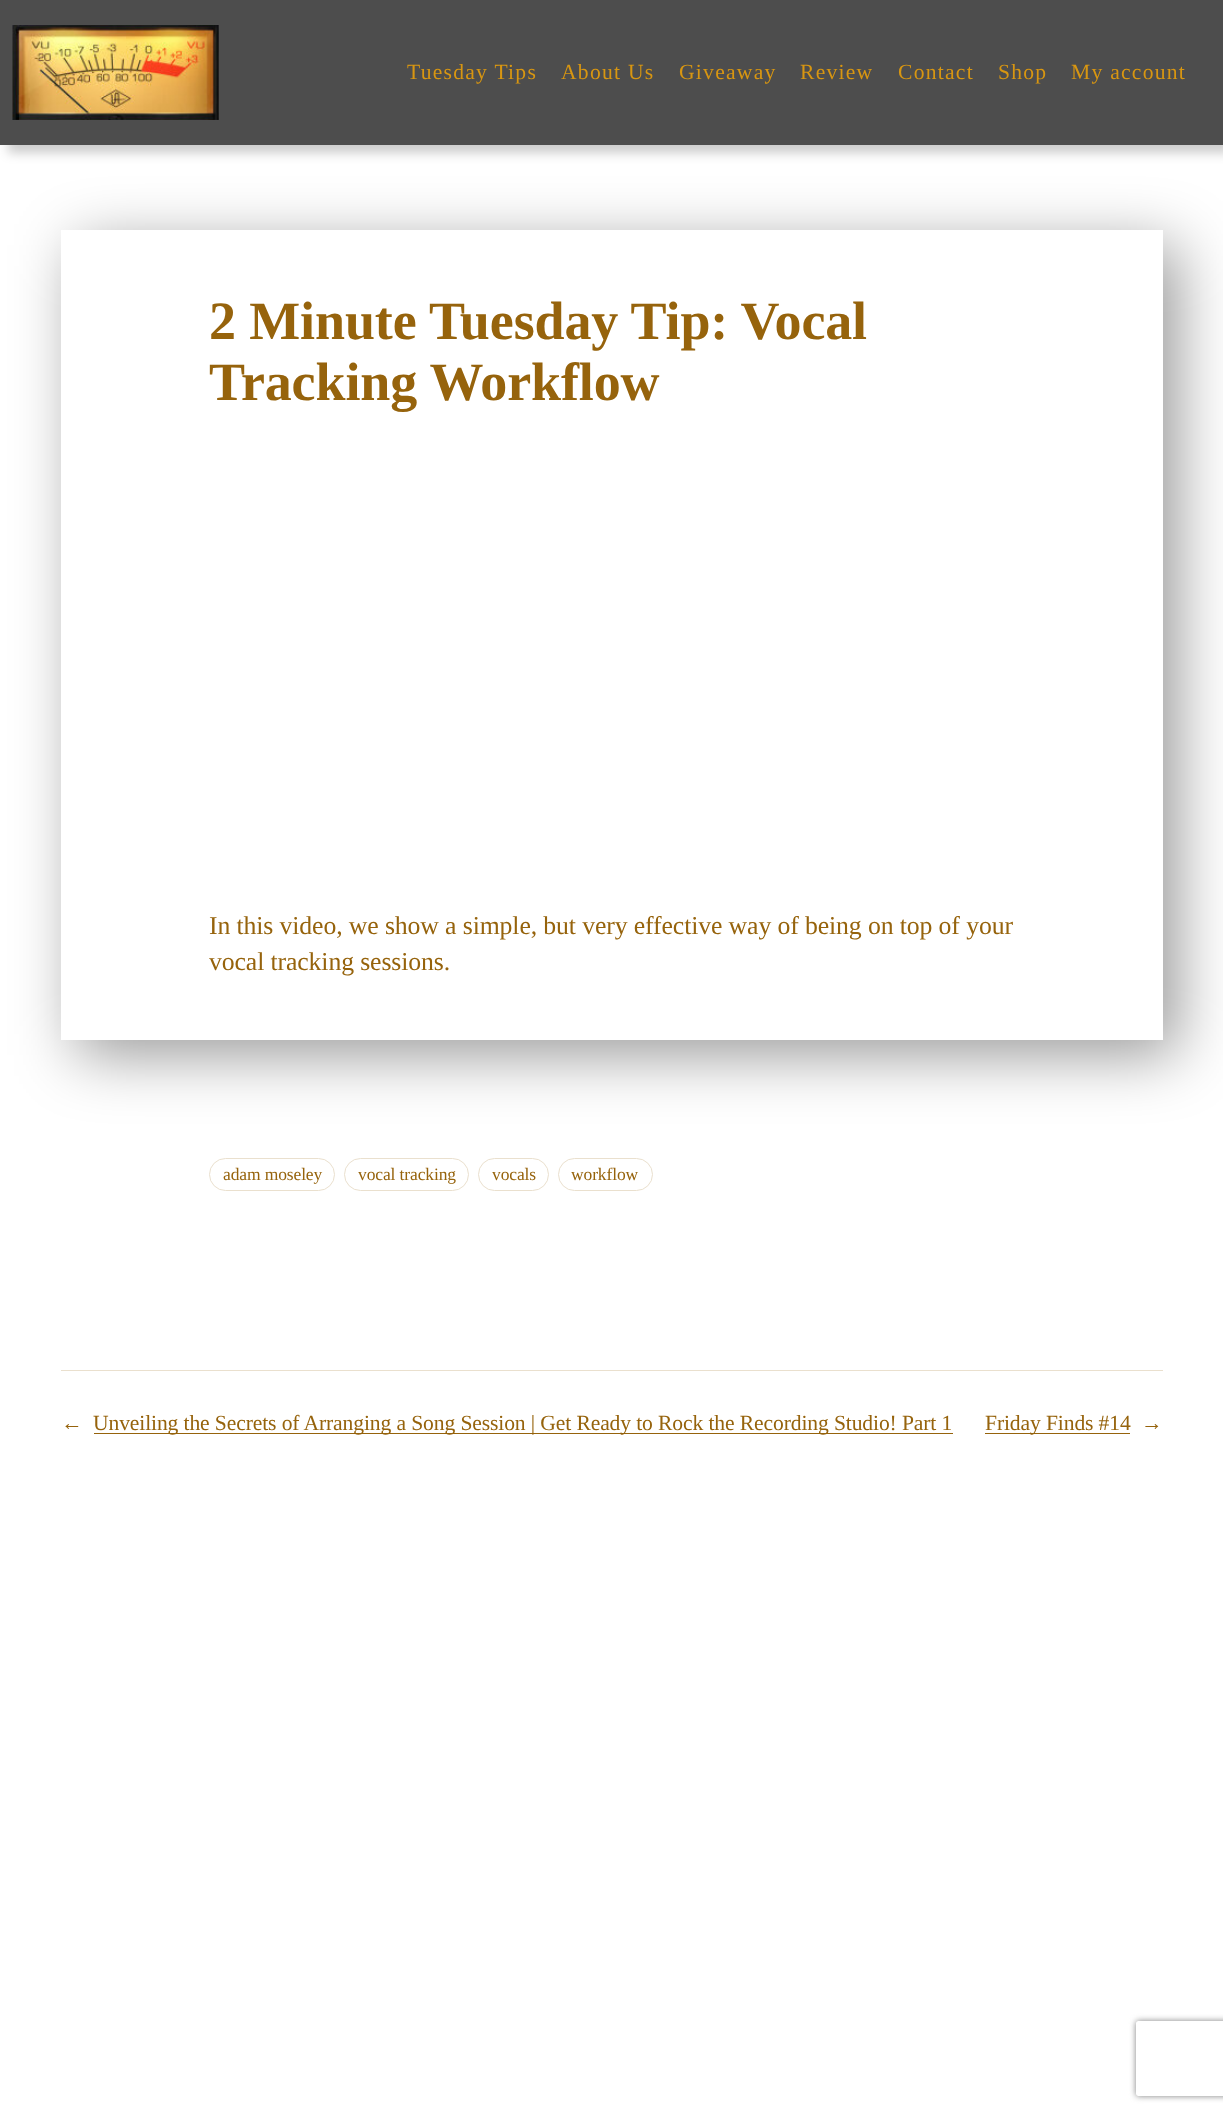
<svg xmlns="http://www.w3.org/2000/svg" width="1223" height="2113">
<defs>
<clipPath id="clip1"><path d="M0 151h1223v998h-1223zm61 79h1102v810h-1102z" clip-rule="evenodd"/></clipPath>
<clipPath id="clip2"><path d="M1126 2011h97v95h-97zm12.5 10h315c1.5 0 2.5 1 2.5 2.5v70c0 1.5-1 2.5-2.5 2.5h-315c-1.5 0-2.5-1-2.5-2.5v-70c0-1.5 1-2.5 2.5-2.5z" clip-rule="evenodd"/></clipPath>
</defs>
<rect width="100%" height="100%" fill="#fff"/>
<rect x="8" y="8" width="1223" height="145" fill="#00000033" filter="blur(5.5px)"/>
<rect width="1223" height="145" fill="#4d4d4d"/>
<image x="12" y="25" width="207" height="95" href="media/1.png"/>
<text x="407" y="79" style="font-family:Liberation Serif;font-size:21.6px;letter-spacing:1.25px;fill:#d89611">Tuesday Tips</text>
<text x="561" y="79" style="font-family:Liberation Serif;font-size:21.6px;letter-spacing:1.25px;fill:#d89611">About Us</text>
<text x="679" y="79" style="font-family:Liberation Serif;font-size:21.6px;letter-spacing:1.25px;fill:#d89611">Giveaway</text>
<text x="800" y="79" style="font-family:Liberation Serif;font-size:21.6px;letter-spacing:1.25px;fill:#d89611">Review</text>
<text x="898" y="79" style="font-family:Liberation Serif;font-size:21.6px;letter-spacing:1.25px;fill:#d89611">Contact</text>
<text x="998" y="79" style="font-family:Liberation Serif;font-size:21.6px;letter-spacing:1.25px;fill:#d89611">Shop</text>
<text x="1071" y="79" style="font-family:Liberation Serif;font-size:21.6px;letter-spacing:1.25px;fill:#d89611">My account</text>
<g clip-path="url(#clip1)">
<rect x="76" y="245" width="1102" height="810" fill="#00000066" filter="blur(31px)"/>
</g>
<text x="209" y="339" style="font-family:Liberation Serif;font-size:54px;font-weight:bold;letter-spacing:-0.12px;fill:#96630c">2 Minute Tuesday Tip: Vocal</text>
<text x="209" y="400" style="font-family:Liberation Serif;font-size:54px;font-weight:bold;letter-spacing:-0.12px;fill:#96630c">Tracking Workflow</text>
<text x="209" y="934" style="font-family:Liberation Serif;font-size:25.75px;letter-spacing:-0.12px;fill:#96630c">In this video, we show a simple, but very effective way of being on top of your</text>
<text x="209" y="970" style="font-family:Liberation Serif;font-size:25.75px;letter-spacing:-0.12px;fill:#96630c">vocal tracking sessions.</text>
<rect x="209.5" y="1158.5" width="125" height="32" rx="16" fill="none" stroke="#eae0ce"/>
<text x="223" y="1180" style="font-family:Liberation Serif;font-size:17.5px;letter-spacing:-0.12px;fill:#96630c">adam moseley</text>
<rect x="344.5" y="1158.5" width="124" height="32" rx="16" fill="none" stroke="#eae0ce"/>
<text x="358" y="1180" style="font-family:Liberation Serif;font-size:17.5px;letter-spacing:-0.12px;fill:#96630c">vocal tracking</text>
<rect x="478.5" y="1158.5" width="70" height="32" rx="16" fill="none" stroke="#eae0ce"/>
<text x="492" y="1180" style="font-family:Liberation Serif;font-size:17.5px;letter-spacing:-0.12px;fill:#96630c">vocals</text>
<rect x="558.5" y="1158.5" width="94" height="32" rx="16" fill="none" stroke="#eae0ce"/>
<text x="571" y="1180" style="font-family:Liberation Serif;font-size:17.5px;letter-spacing:-0.12px;fill:#96630c">workflow</text>
<rect x="61" y="1370" width="1102" height="1" fill="#eae0ce"/>
<text x="61" y="1430" style="font-family:Liberation Serif;font-size:21.6px;letter-spacing:-0.12px;fill:#96630c">←</text>
<rect x="94" y="1433" width="859" height="1" fill="#96630c"/>
<text x="93" y="1430" style="font-family:Liberation Serif;font-size:21.6px;letter-spacing:-0.12px;fill:#96630c">Unveiling the Secrets of Arranging a Song Session | Get Ready to Rock the Recording Studio! Part 1</text>
<rect x="985" y="1433" width="145" height="1" fill="#96630c"/>
<text x="985" y="1430" style="font-family:Liberation Serif;font-size:21.6px;letter-spacing:-0.12px;fill:#96630c">Friday Finds #14</text>
<text x="1141" y="1430" style="font-family:Liberation Serif;font-size:21.6px;letter-spacing:-0.12px;fill:#96630c">→</text>
<g clip-path="url(#clip2)">
<rect x="1136" y="2021" width="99" height="75" rx="2.5" fill="#808080" filter="blur(3px)"/>
</g>
</svg>
